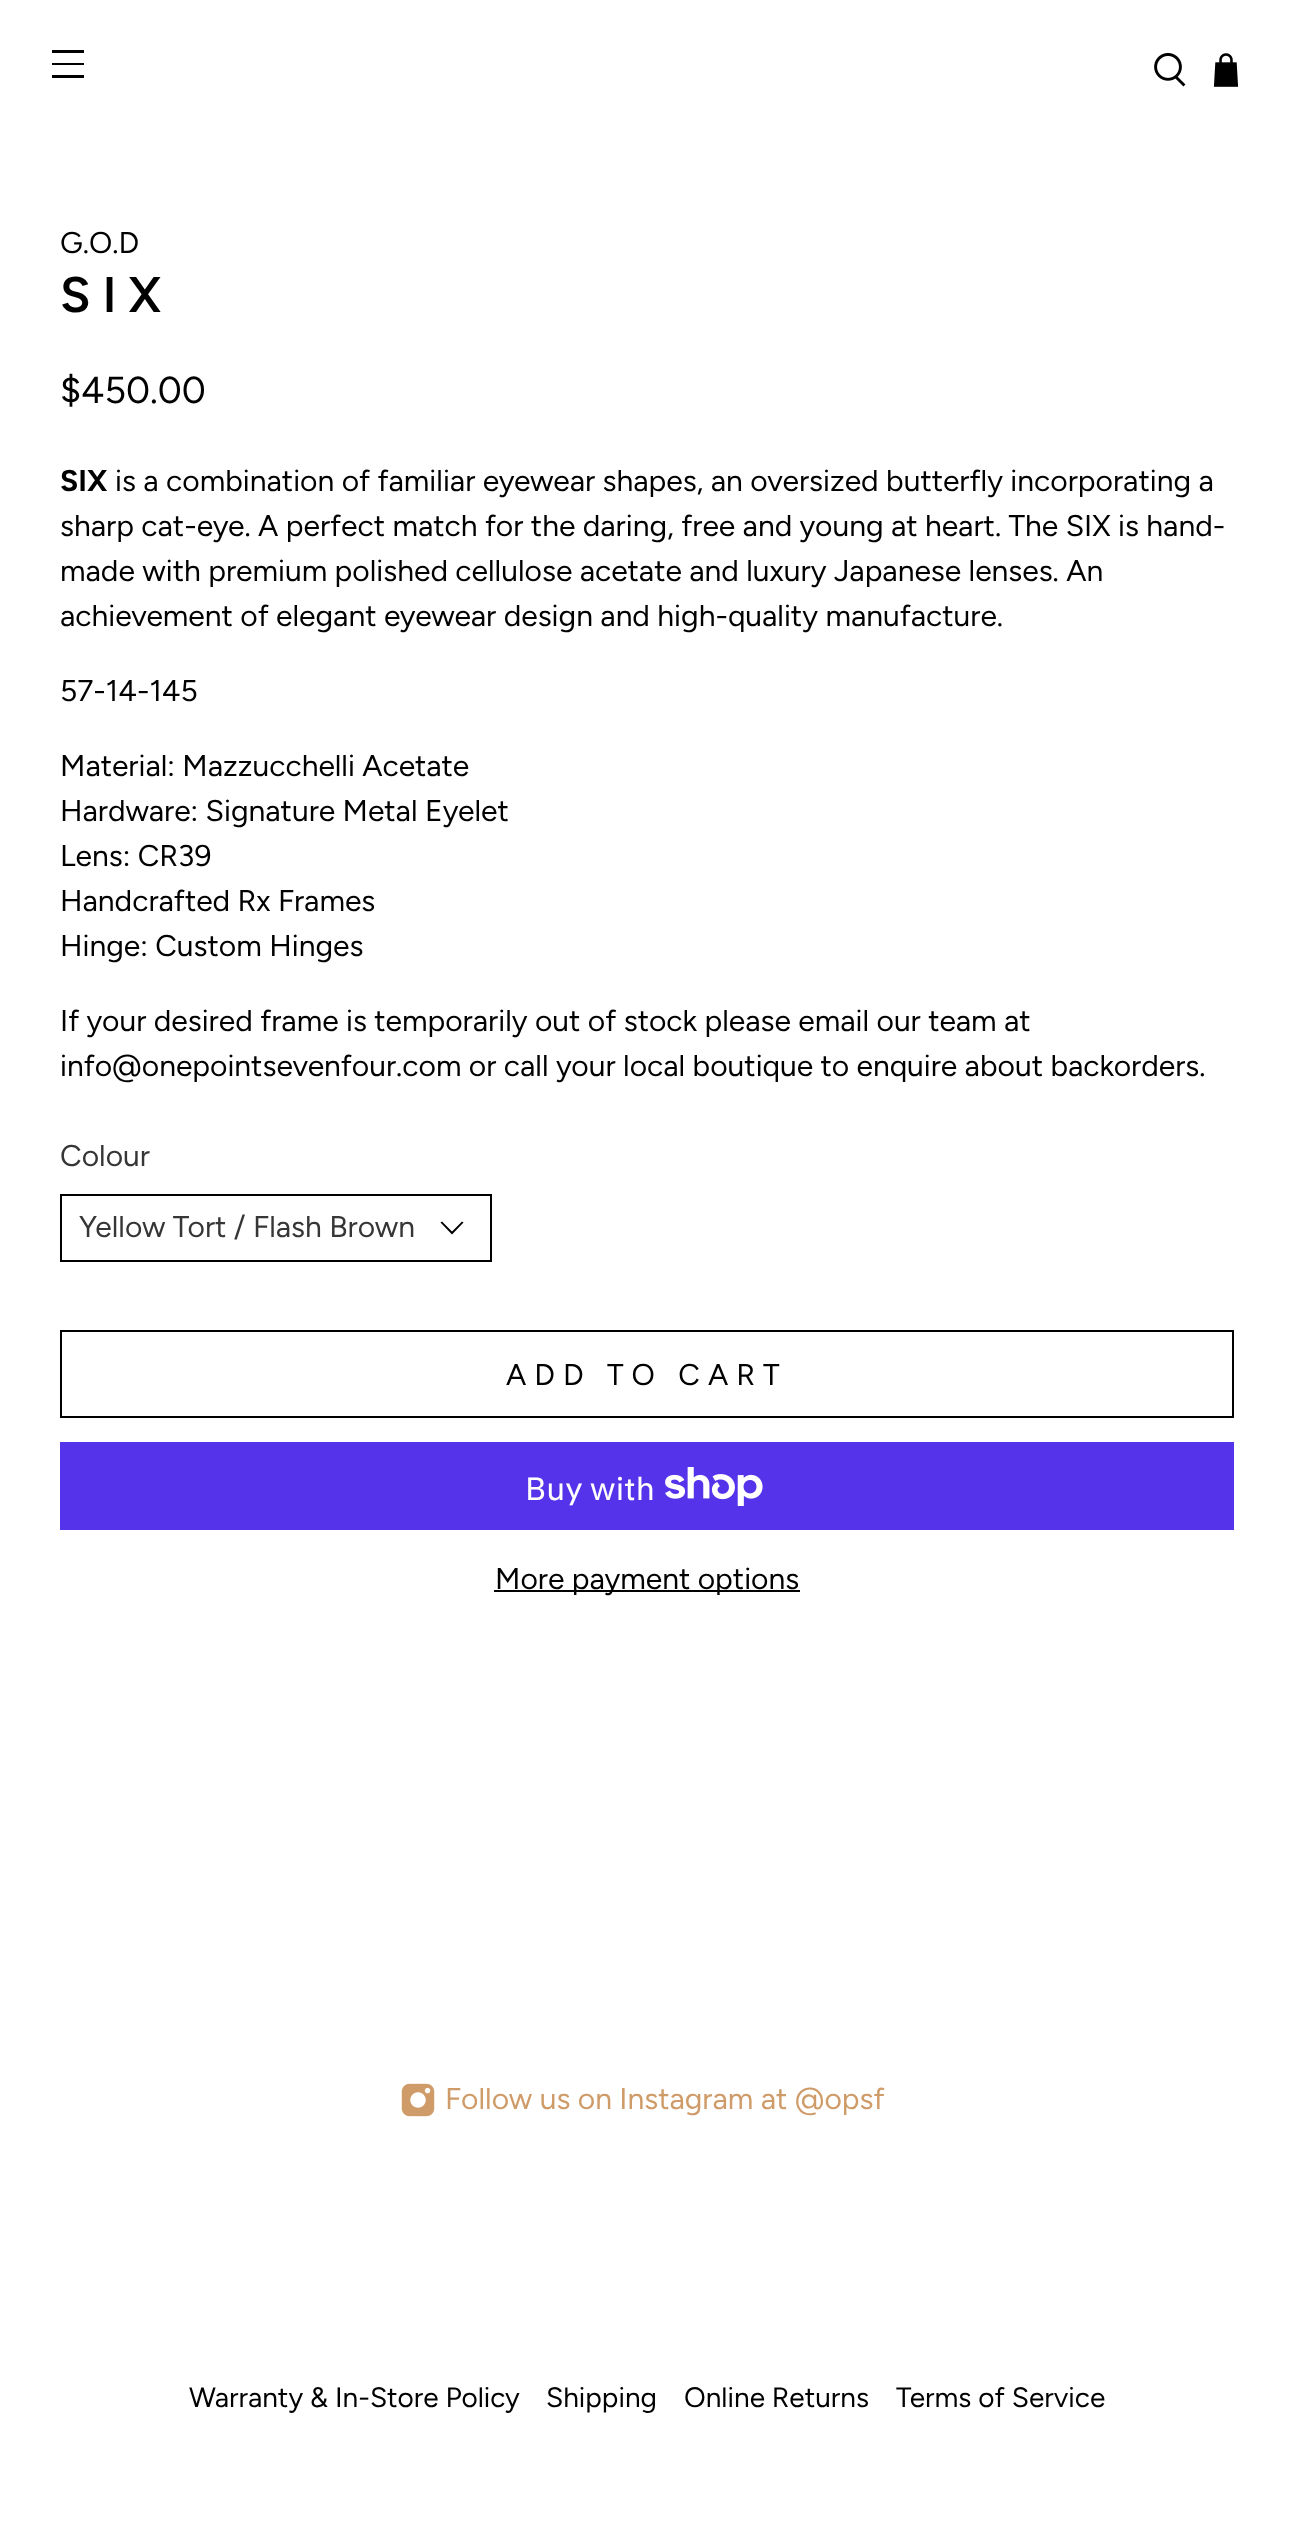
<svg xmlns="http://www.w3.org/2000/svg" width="1294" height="2544">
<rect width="100%" height="100%" fill="#fff"/>
<rect x="52" y="50" width="32" height="3" fill="#000"/>
<rect x="52" y="63" width="32" height="2" fill="#000"/>
<rect x="52" y="75" width="32" height="3" fill="#000"/>
<image x="1154" y="53" width="32" height="34" href="media/1.png"/>
<image x="1213" y="53" width="26" height="34" href="media/2.png"/>
<text x="60" y="253" style="font-family:Figtree;font-size:30px;fill:#000">G.O.D</text>
<text x="60" y="312" style="font-family:Figtree;font-size:50px;font-weight:600;letter-spacing:12px;fill:#000">SIX</text>
<text x="60" y="403" style="font-family:Figtree;font-size:37.5px;fill:#000">$450.00</text>
<text x="60" y="491" style="font-family:Figtree;font-size:30px;font-weight:bold;fill:#000">SIX</text>
<text x="115" y="491" style="font-family:Figtree;font-size:30px;fill:#000">is a combination of familiar eyewear shapes, an oversized butterfly incorporating a</text>
<text x="60" y="536" style="font-family:Figtree;font-size:30px;fill:#000">sharp cat-eye. A perfect match for the daring, free and young at heart. The SIX is hand-</text>
<text x="60" y="581" style="font-family:Figtree;font-size:30px;fill:#000">made with premium polished cellulose acetate and luxury Japanese lenses. An</text>
<text x="60" y="626" style="font-family:Figtree;font-size:30px;fill:#000">achievement of elegant eyewear design and high-quality manufacture.</text>
<text x="60" y="701" style="font-family:Figtree;font-size:30px;fill:#000">57-14-145</text>
<text x="60" y="776" style="font-family:Figtree;font-size:30px;fill:#000">Material: Mazzucchelli Acetate</text>
<text x="60" y="821" style="font-family:Figtree;font-size:30px;fill:#000">Hardware: Signature Metal Eyelet</text>
<text x="60" y="866" style="font-family:Figtree;font-size:30px;fill:#000">Lens: CR39</text>
<text x="60" y="911" style="font-family:Figtree;font-size:30px;fill:#000">Handcrafted Rx Frames</text>
<text x="60" y="956" style="font-family:Figtree;font-size:30px;fill:#000">Hinge: Custom Hinges</text>
<text x="60" y="1031" style="font-family:Figtree;font-size:30px;fill:#000">If your desired frame is temporarily out of stock please email our team at</text>
<text x="60" y="1076" style="font-family:Figtree;font-size:30px;fill:#000">info@onepointsevenfour.com or call your local boutique to enquire about backorders.</text>
<text x="60" y="1166" style="font-family:Figtree;font-size:30px;fill:#363636">Colour</text>
<rect x="61" y="1195" width="430" height="66" fill="none" stroke="#000" stroke-width="2"/>
<text x="79" y="1237" style="font-family:Figtree;font-size:30px;fill:#363636">Yellow Tort / Flash Brown</text>
<path d="M452 1234.5l-11.5-12l1.5-1l10 10l10-10l1.5 1z" fill="#000"/>
<rect x="61" y="1331" width="1172" height="86" fill="none" stroke="#000" stroke-width="2"/>
<text x="506" y="1385" style="font-family:Figtree;font-size:30px;letter-spacing:8px;fill:#000">ADD TO CART</text>
<rect x="60" y="1442" width="1174" height="88" fill="#5433eb"/>
<text x="525" y="1500" style="font-family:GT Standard;font-size:32px;fill:#fff">Buy with</text>
<image x="665" y="1467" width="98" height="39" href="media/3.png"/>
<rect x="494" y="1590" width="306" height="2" fill="#000"/>
<text x="495" y="1589" style="font-family:Figtree;font-size:30px;fill:#000">More payment options</text>
<image x="401" y="2083" width="34" height="34" href="media/4.png"/>
<text x="445" y="2109" style="font-family:Figtree;font-size:30px;fill:#cf9b68">Follow us on Instagram at @opsf</text>
<text x="189" y="2407" style="font-family:Figtree;font-size:28px;fill:#000">Warranty &amp; In-Store Policy</text>
<text x="546" y="2407" style="font-family:Figtree;font-size:28px;fill:#000">Shipping</text>
<text x="684" y="2407" style="font-family:Figtree;font-size:28px;fill:#000">Online Returns</text>
<text x="896" y="2407" style="font-family:Figtree;font-size:28px;fill:#000">Terms of Service</text>
</svg>
